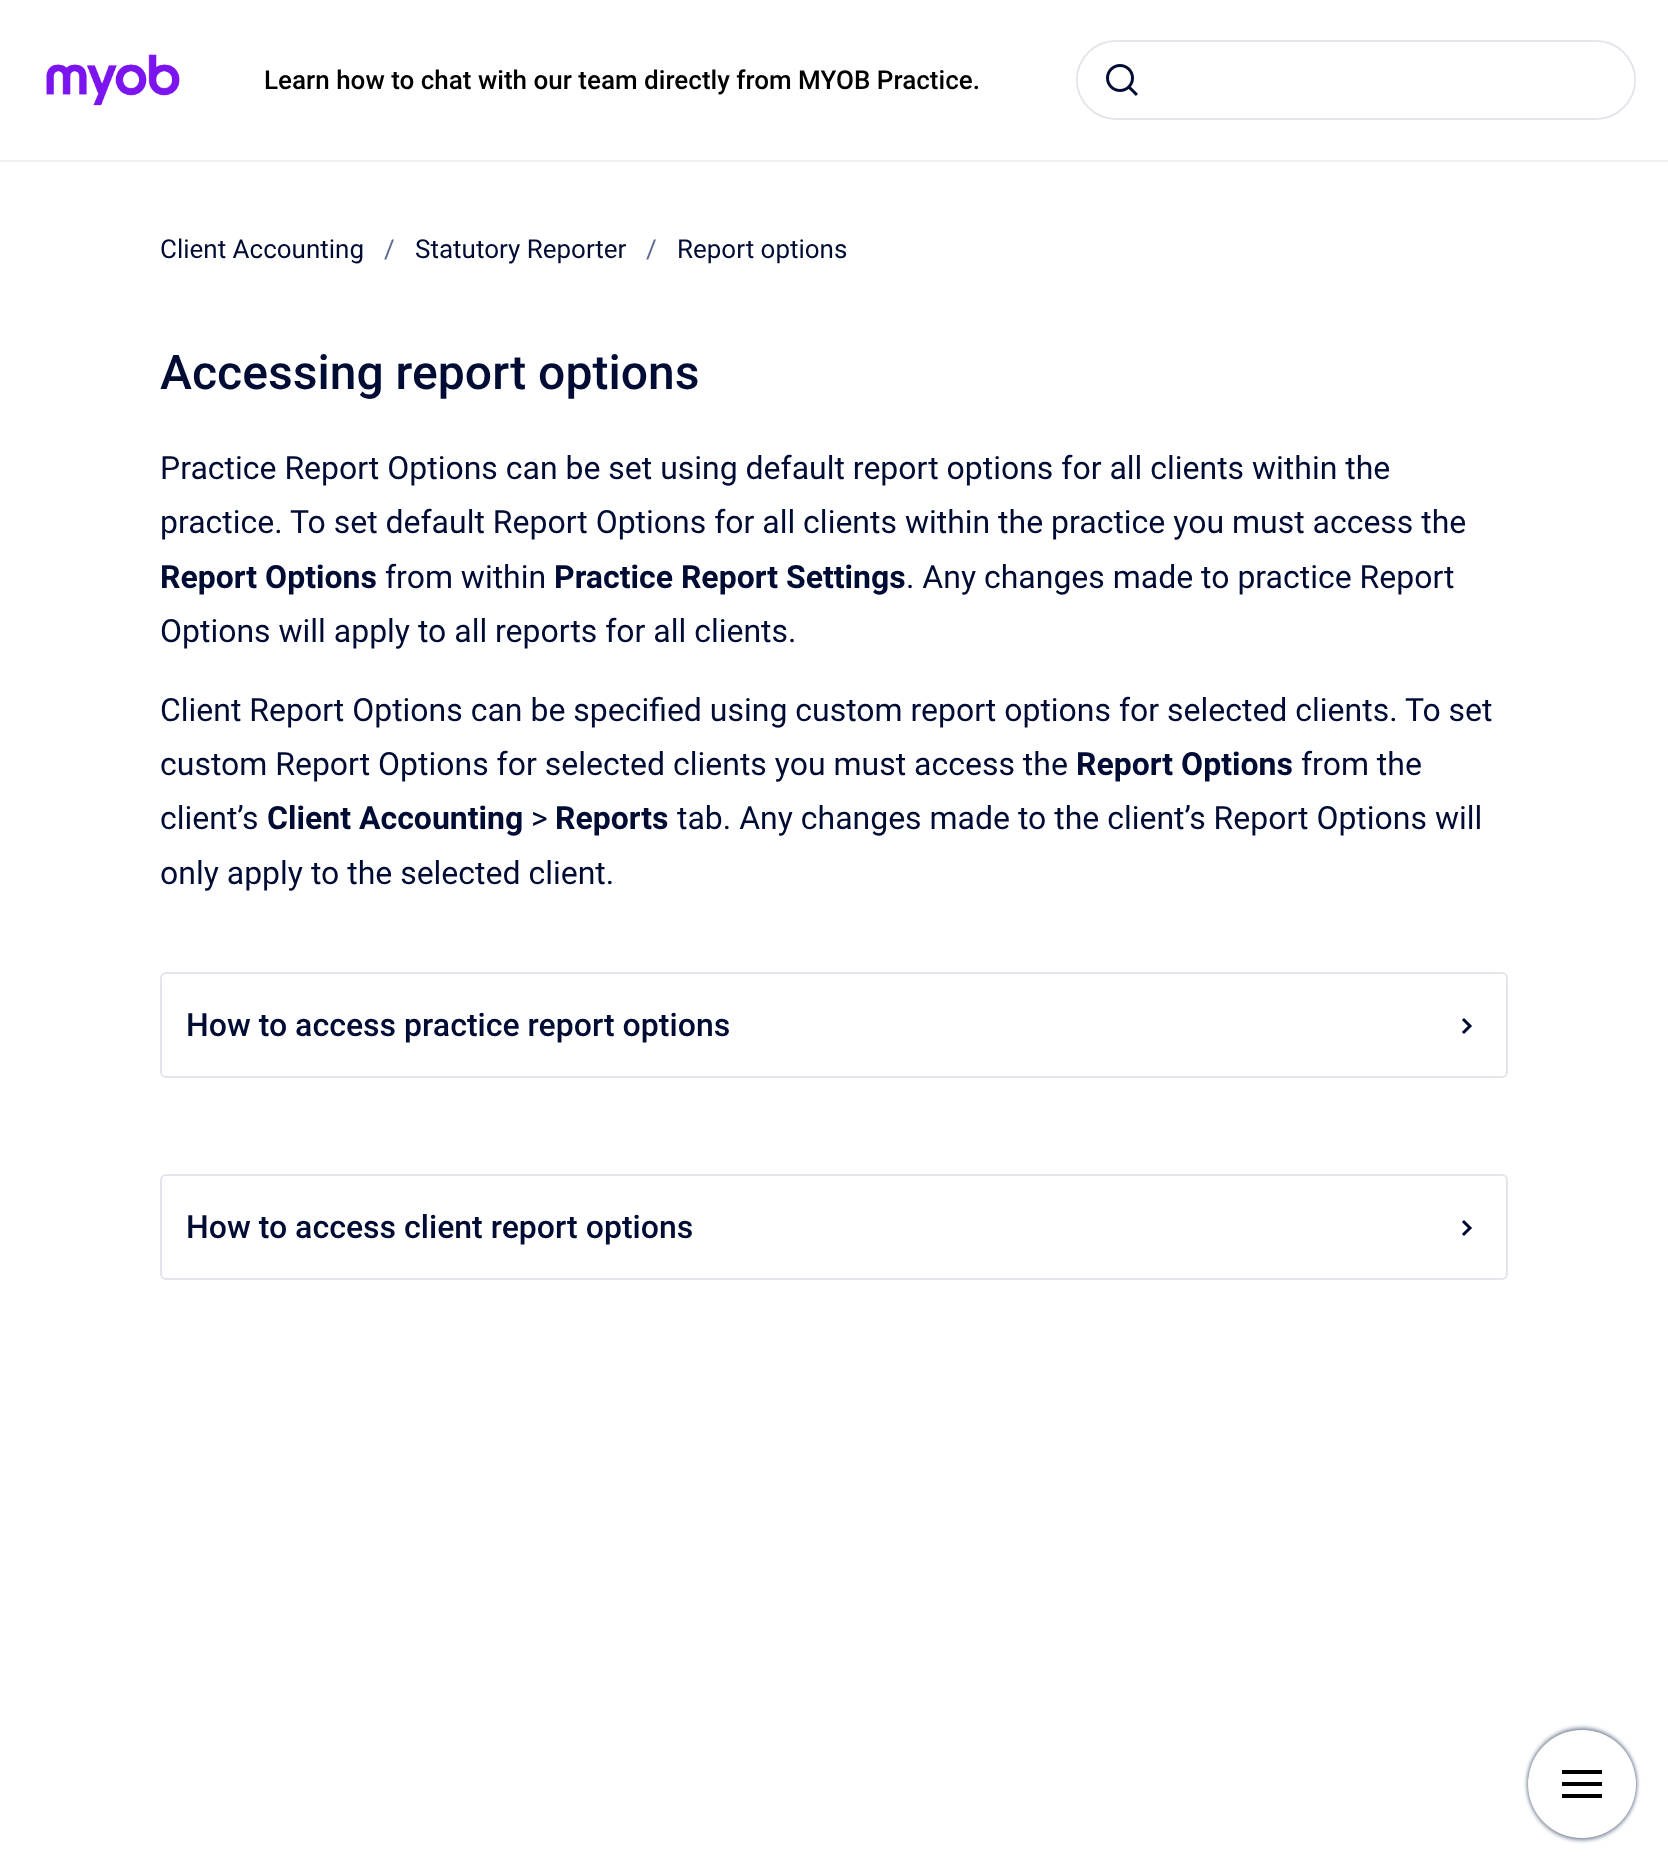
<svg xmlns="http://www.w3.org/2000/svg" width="1668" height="1870">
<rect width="100%" height="100%" fill="#fff"/>
<rect y="160" width="1668" height="2" fill="#eff0f4"/>
<image x="46" y="54" width="134" height="52" href="media/1.png"/>
<text x="264" y="89" style="font-family:Roboto;font-size:26px;font-weight:500;fill:#000">Learn how to chat with our team directly from MYOB Practice.</text>
<rect x="1077" y="41" width="558" height="78" rx="39" fill="none" stroke="#e2e5eb" stroke-width="2"/>
<rect x="1078" y="42" width="556" height="76" rx="38" fill="#fff"/>
<image x="1106" y="64" width="32" height="32" href="media/2.png"/>
<text x="160" y="258" style="font-family:Roboto;font-size:26px;fill:#000c34">Client Accounting</text>
<text x="384" y="258" style="font-family:Roboto;font-size:26px;fill:#5d6b8f">/</text>
<text x="415" y="258" style="font-family:Roboto;font-size:26px;fill:#000c34">Statutory Reporter</text>
<text x="646" y="258" style="font-family:Roboto;font-size:26px;fill:#5d6b8f">/</text>
<text x="677" y="258" style="font-family:Roboto;font-size:26px;fill:#000c34">Report options</text>
<text x="160" y="389" style="font-family:Roboto;font-size:48px;font-weight:500;fill:#000c34">Accessing report options</text>
<text x="160" y="479" style="font-family:Roboto;font-size:32px;fill:#000c34">Practice Report Options can be set using default report options for all clients within the</text>
<text x="160" y="533" style="font-family:Roboto;font-size:32px;fill:#000c34">practice. To set default Report Options for all clients within the practice you must access the</text>
<text x="160" y="588" style="font-family:Roboto;font-size:32px;font-weight:bold;fill:#000c34">Report Options</text>
<text x="385" y="588" style="font-family:Roboto;font-size:32px;fill:#000c34">from within</text>
<text x="554" y="588" style="font-family:Roboto;font-size:32px;font-weight:bold;fill:#000c34">Practice Report Settings</text>
<text x="906" y="588" style="font-family:Roboto;font-size:32px;fill:#000c34">. Any changes made to practice Report</text>
<text x="160" y="642" style="font-family:Roboto;font-size:32px;fill:#000c34">Options will apply to all reports for all clients.</text>
<text x="160" y="721" style="font-family:Roboto;font-size:32px;fill:#000c34">Client Report Options can be specified using custom report options for selected clients. To set</text>
<text x="160" y="775" style="font-family:Roboto;font-size:32px;fill:#000c34">custom Report Options for selected clients you must access the</text>
<text x="1076" y="775" style="font-family:Roboto;font-size:32px;font-weight:bold;fill:#000c34">Report Options</text>
<text x="1301" y="775" style="font-family:Roboto;font-size:32px;fill:#000c34">from the</text>
<text x="160" y="829" style="font-family:Roboto;font-size:32px;fill:#000c34">client’s</text>
<text x="267" y="829" style="font-family:Roboto;font-size:32px;font-weight:bold;fill:#000c34">Client Accounting</text>
<text x="531" y="829" style="font-family:Roboto;font-size:32px;fill:#000c34">&gt;</text>
<text x="555" y="829" style="font-family:Roboto;font-size:32px;font-weight:bold;fill:#000c34">Reports</text>
<text x="677" y="829" style="font-family:Roboto;font-size:32px;fill:#000c34">tab. Any changes made to the client’s Report Options will</text>
<text x="160" y="884" style="font-family:Roboto;font-size:32px;fill:#000c34">only apply to the selected client.</text>
<rect x="161" y="973" width="1346" height="104" rx="5" fill="none" stroke="#e2e5eb" stroke-width="2"/>
<text x="186" y="1036" style="font-family:Roboto;font-size:32px;font-weight:500;fill:#000c34">How to access practice report options</text>
<path d="M1464 1020l6 6l-6 6" fill="none" stroke="#000c34" stroke-width="3" stroke-linecap="square"/>
<rect x="161" y="1175" width="1346" height="104" rx="5" fill="none" stroke="#e2e5eb" stroke-width="2"/>
<text x="186" y="1238" style="font-family:Roboto;font-size:32px;font-weight:500;fill:#000c34">How to access client report options</text>
<path d="M1464 1222l6 6l-6 6" fill="none" stroke="#000c34" stroke-width="3" stroke-linecap="square"/>
<rect x="1528" y="1728" width="108" height="108" rx="54" fill="#7a869a" filter="blur(2px)"/>
<rect x="1528" y="1732" width="108" height="108" rx="54" fill="#7a869a" filter="blur(2px)"/>
<circle cx="1582" cy="1784" r="54" fill="#fff"/>
<rect x="1562" y="1770" width="40" height="4" fill="#000"/>
<rect x="1562" y="1782" width="40" height="4" fill="#000"/>
<rect x="1562" y="1794" width="40" height="4" fill="#000"/>
</svg>
